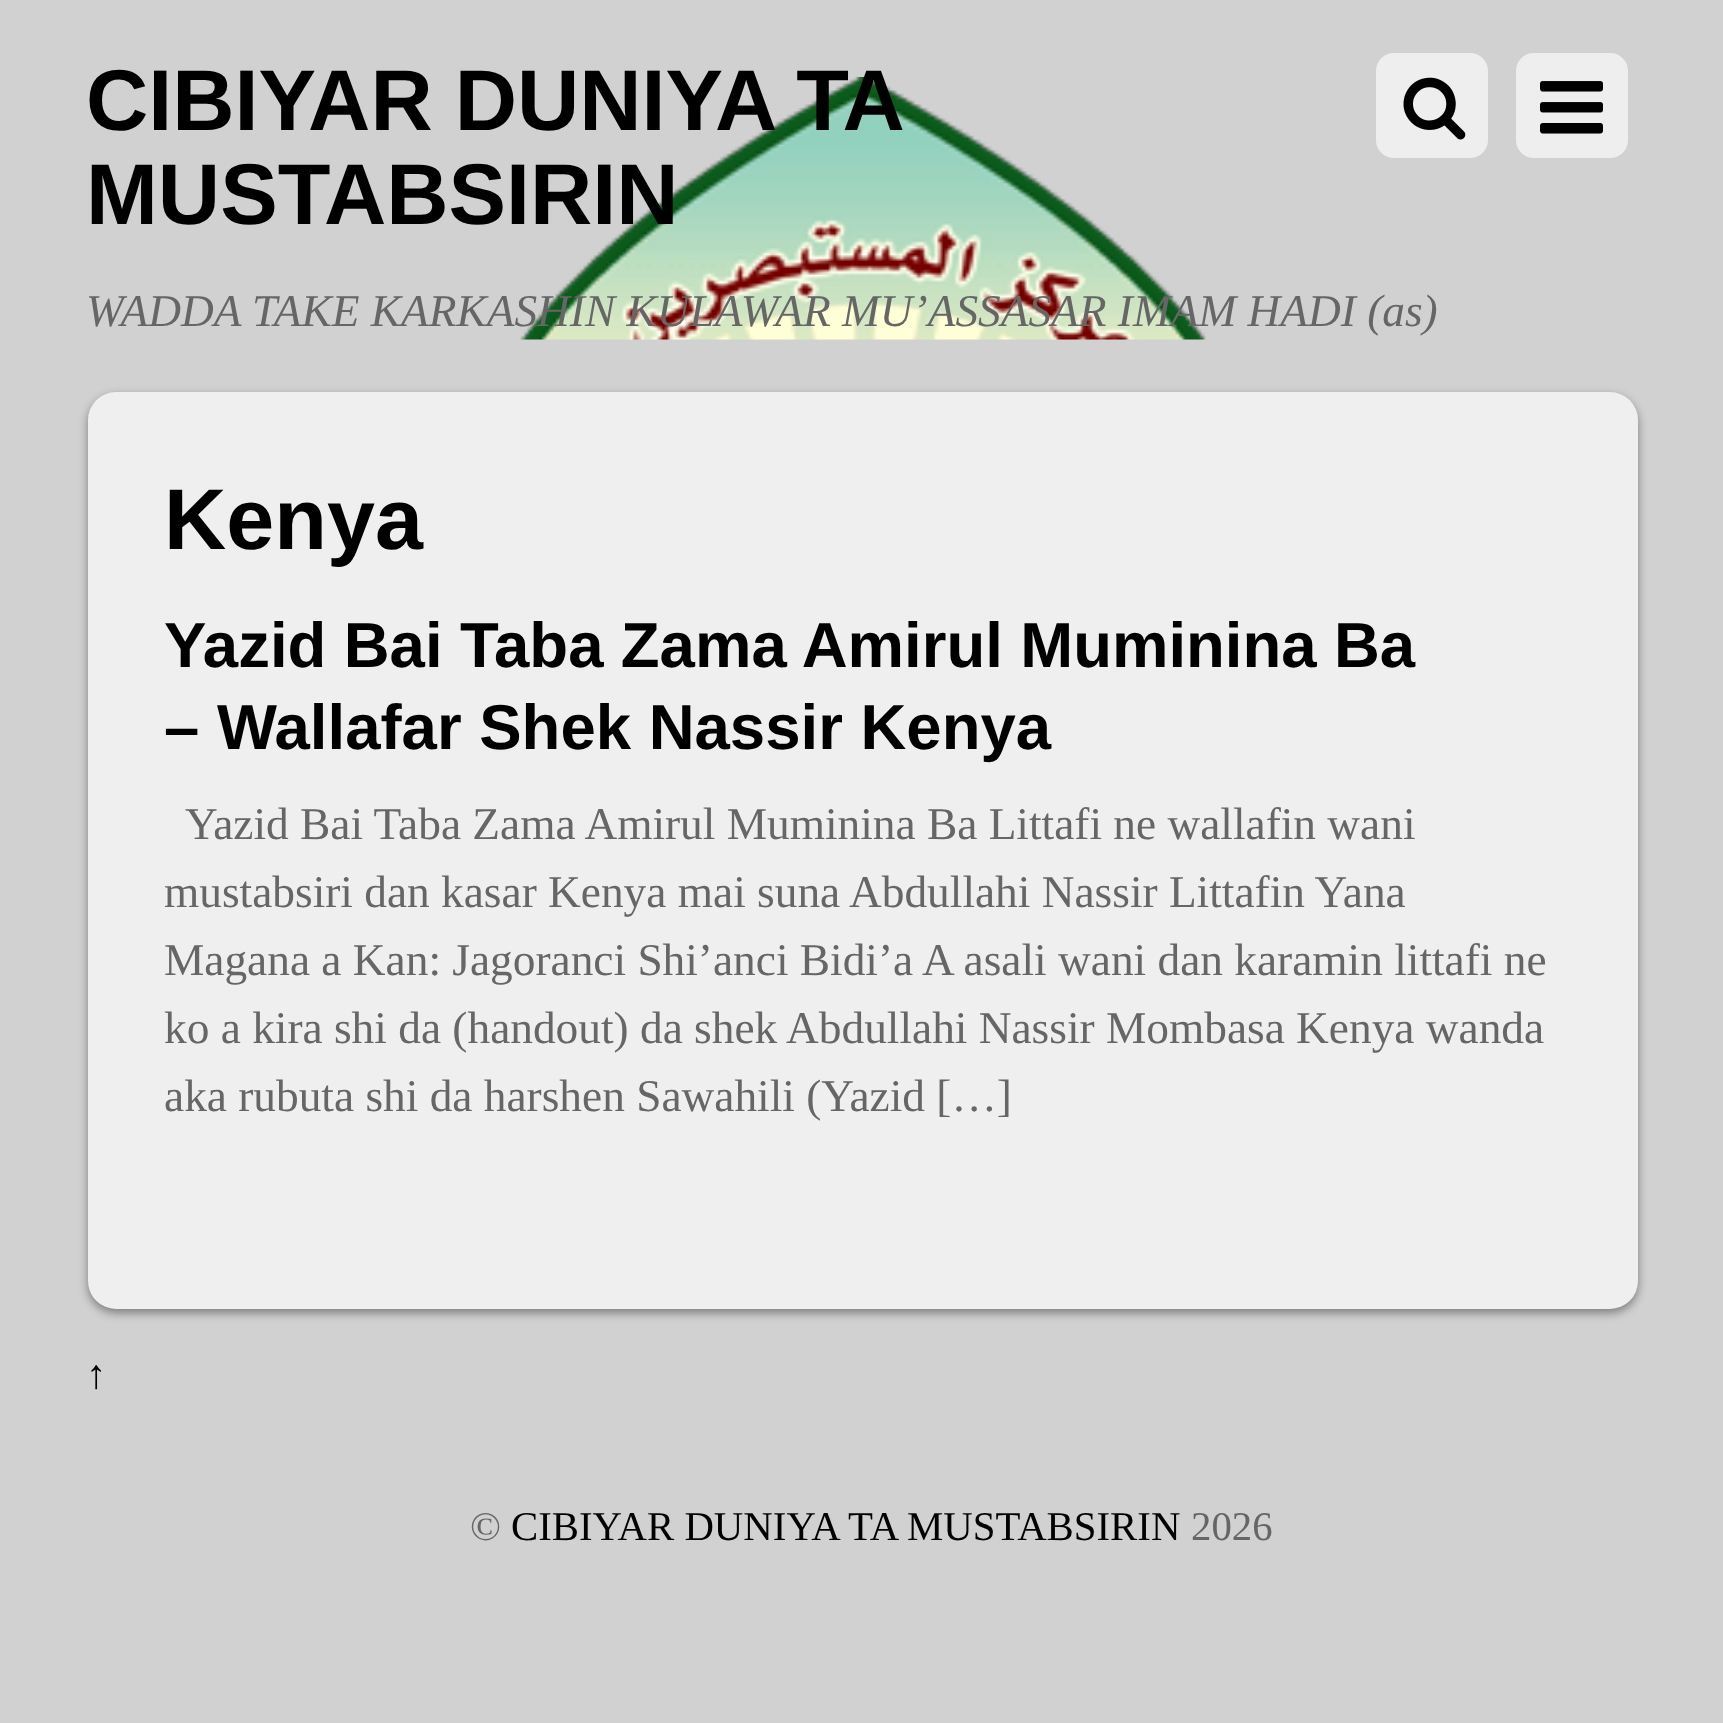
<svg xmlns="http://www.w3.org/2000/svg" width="1723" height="1723">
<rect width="100%" height="100%" fill="#d1d1d1"/>
<image x="520" y="77" width="686" height="263" href="media/1.png"/>
<text x="86" y="130" word-spacing="-2" style="font-family:Liberation Sans;font-size:86.25px;font-weight:bold;fill:#000">CIBIYAR DUNIYA TA</text>
<text x="86" y="224" style="font-family:Liberation Sans;font-size:86.25px;font-weight:bold;fill:#000">MUSTABSIRIN</text>
<rect x="1376" y="53" width="112" height="105" rx="18" fill="#eee"/>
<image x="1403" y="77" width="63" height="63" href="media/2.png"/>
<rect x="1516" y="53" width="112" height="105" rx="18" fill="#eee"/>
<image x="1540" y="81" width="63" height="53" href="media/3.png"/>
<text x="86" y="326" style="font-family:Liberation Serif;font-size:45.35px;font-style:italic;fill:#666">WADDA TAKE KARKASHIN KULAWAR MU’ASSASAR IMAM HADI (as)</text>
<rect x="88" y="396" width="1550" height="917" rx="28" fill="#00000066" filter="blur(5px)"/>
<rect x="88" y="392" width="1550" height="917" rx="28" fill="#efefef"/>
<text x="164" y="549" style="font-family:Liberation Sans;font-size:86.25px;font-weight:bold;fill:#000">Kenya</text>
<text x="164" y="667" word-spacing="-0.25" style="font-family:Liberation Sans;font-size:63.5px;font-weight:bold;fill:#000">Yazid Bai Taba Zama Amirul Muminina Ba</text>
<text x="164" y="749" style="font-family:Liberation Sans;font-size:63.5px;font-weight:bold;fill:#000">– Wallafar Shek Nassir Kenya</text>
<text x="185" y="839" style="font-family:Liberation Serif;font-size:45.35px;fill:#666">Yazid Bai Taba Zama Amirul Muminina Ba Littafi ne wallafin wani</text>
<text x="164" y="907" style="font-family:Liberation Serif;font-size:45.35px;fill:#666">mustabsiri dan kasar Kenya mai suna Abdullahi Nassir Littafin Yana</text>
<text x="164" y="975" style="font-family:Liberation Serif;font-size:45.35px;fill:#666">Magana a Kan: Jagoranci Shi’anci Bidi’a A asali wani dan karamin littafi ne</text>
<text x="164" y="1043" style="font-family:Liberation Serif;font-size:45.35px;fill:#666">ko a kira shi da (handout) da shek Abdullahi Nassir Mombasa Kenya wanda</text>
<text x="164" y="1111" style="font-family:Liberation Serif;font-size:45.35px;fill:#666">aka rubuta shi da harshen Sawahili (Yazid […]</text>
<text x="86" y="1388" style="font-family:Liberation Serif;font-size:40.8px;fill:#000">↑</text>
<text x="470" y="1540" style="font-family:Liberation Serif;font-size:40.8px;fill:#666">©</text>
<text x="511" y="1540" style="font-family:Liberation Serif;font-size:40.8px;fill:#000">CIBIYAR DUNIYA TA MUSTABSIRIN</text>
<text x="1191" y="1540" style="font-family:Liberation Serif;font-size:40.8px;fill:#666">2026</text>
</svg>
